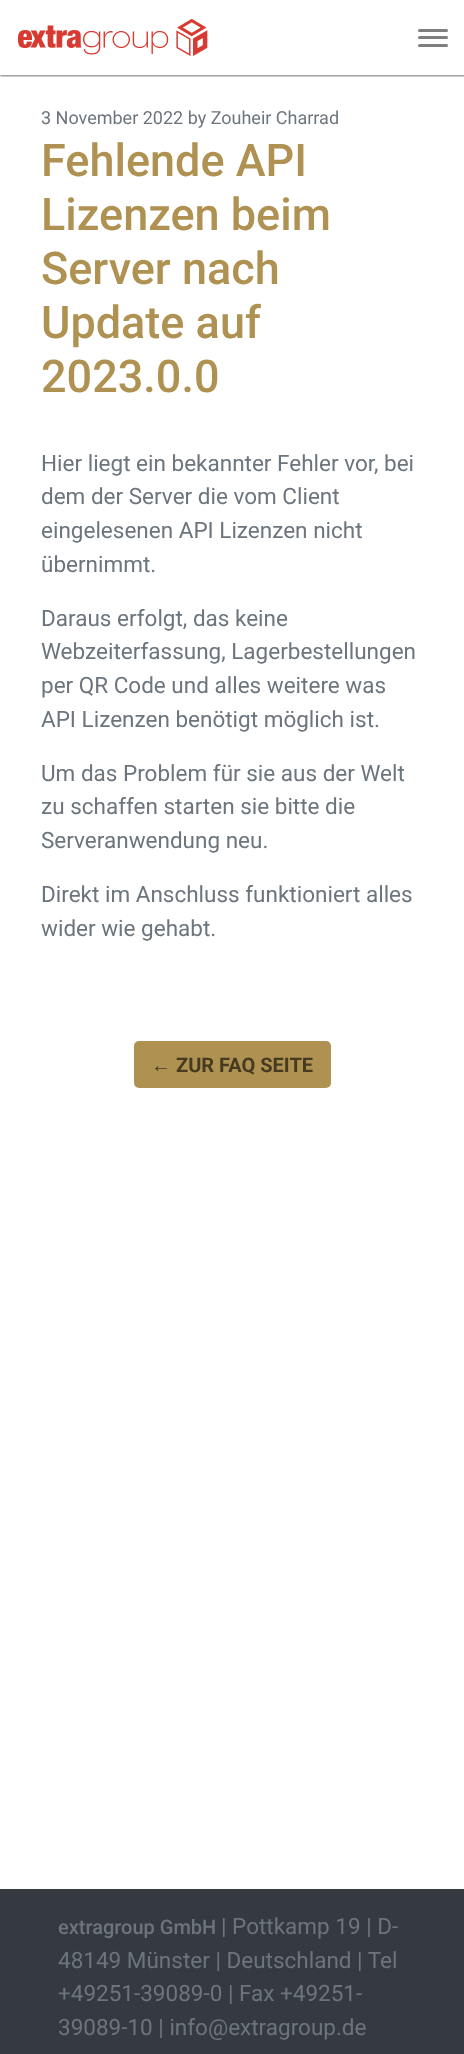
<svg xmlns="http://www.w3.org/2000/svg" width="464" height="2054">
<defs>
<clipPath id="clip1"><rect x="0" y="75" width="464" height="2"/></clipPath>
</defs>
<rect width="100%" height="100%" fill="#fff"/>
<g clip-path="url(#clip1)">
<rect y="1" width="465" height="75" fill="#0000004d" filter="blur(1px)"/>
<rect y="1" width="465" height="75" fill="#0000004d" filter="blur(1px)"/>
</g>
<image x="18" y="19" width="190" height="37" href="media/1.png"/>
<rect x="418" y="29" width="30" height="3" rx="1.5" fill="#7f7f7f"/>
<rect x="418" y="36" width="30" height="3" rx="1.5" fill="#7f7f7f"/>
<rect x="418" y="44" width="30" height="3" rx="1.5" fill="#7f7f7f"/>
<text x="41" y="124" style="font-family:Roboto;font-size:18px;fill:#6c757d">3 November 2022 by Zouheir Charrad</text>
<text x="41" y="176" style="font-family:Roboto;font-size:45px;font-weight:500;fill:#af9252">Fehlende API</text>
<text x="41" y="230" style="font-family:Roboto;font-size:45px;font-weight:500;fill:#af9252">Lizenzen beim</text>
<text x="41" y="284" style="font-family:Roboto;font-size:45px;font-weight:500;fill:#af9252">Server nach</text>
<text x="41" y="338" style="font-family:Roboto;font-size:45px;font-weight:500;fill:#af9252">Update auf</text>
<text x="41" y="392" style="font-family:Roboto;font-size:45px;font-weight:500;fill:#af9252">2023.0.0</text>
<text x="41" y="471" style="font-family:Roboto;font-size:22.5px;fill:#6c757d">Hier liegt ein bekannter Fehler vor, bei</text>
<text x="41" y="504" style="font-family:Roboto;font-size:22.5px;fill:#6c757d">dem der Server die vom Client</text>
<text x="41" y="538" style="font-family:Roboto;font-size:22.5px;fill:#6c757d">eingelesenen API Lizenzen nicht</text>
<text x="41" y="572" style="font-family:Roboto;font-size:22.5px;fill:#6c757d">übernimmt.</text>
<text x="41" y="626" style="font-family:Roboto;font-size:22.5px;fill:#6c757d">Daraus erfolgt, das keine</text>
<text x="41" y="659" style="font-family:Roboto;font-size:22.5px;fill:#6c757d">Webzeiterfassung, Lagerbestellungen</text>
<text x="41" y="693" style="font-family:Roboto;font-size:22.5px;fill:#6c757d">per QR Code und alles weitere was</text>
<text x="41" y="727" style="font-family:Roboto;font-size:22.5px;fill:#6c757d">API Lizenzen benötigt möglich ist.</text>
<text x="41" y="781" style="font-family:Roboto;font-size:22.5px;fill:#6c757d">Um das Problem für sie aus der Welt</text>
<text x="41" y="814" style="font-family:Roboto;font-size:22.5px;fill:#6c757d">zu schaffen starten sie bitte die</text>
<text x="41" y="848" style="font-family:Roboto;font-size:22.5px;fill:#6c757d">Serveranwendung neu.</text>
<text x="41" y="902" style="font-family:Roboto;font-size:22.5px;fill:#6c757d">Direkt im Anschluss funktioniert alles</text>
<text x="41" y="936" style="font-family:Roboto;font-size:22.5px;fill:#6c757d">wider wie gehabt.</text>
<rect x="134" y="1041" width="197" height="47" rx="5" fill="#af9252"/>
<text x="151" y="1072" style="font-family:Liberation Serif;font-size:20px;font-weight:bold;fill:#463a21">←</text>
<text x="176" y="1072" style="font-family:Roboto;font-size:20px;font-weight:bold;fill:#463a21">ZUR FAQ SEITE</text>
<rect y="1889" width="464" height="165" fill="#343a40"/>
<text x="58" y="1934" style="font-family:Roboto;font-size:20px;font-weight:500;fill:#6c757d">extragroup GmbH</text>
<text x="221" y="1934" style="font-family:Roboto;font-size:22.5px;fill:#6c757d">| Pottkamp 19 | D-</text>
<text x="58" y="1968" style="font-family:Roboto;font-size:22.5px;fill:#6c757d">48149 Münster | Deutschland | Tel</text>
<text x="58" y="2001" style="font-family:Roboto;font-size:22.5px;fill:#6c757d">+49251-39089-0 | Fax +49251-</text>
<text x="58" y="2035" style="font-family:Roboto;font-size:22.5px;fill:#6c757d">39089-10 | info@extragroup.de</text>
</svg>
